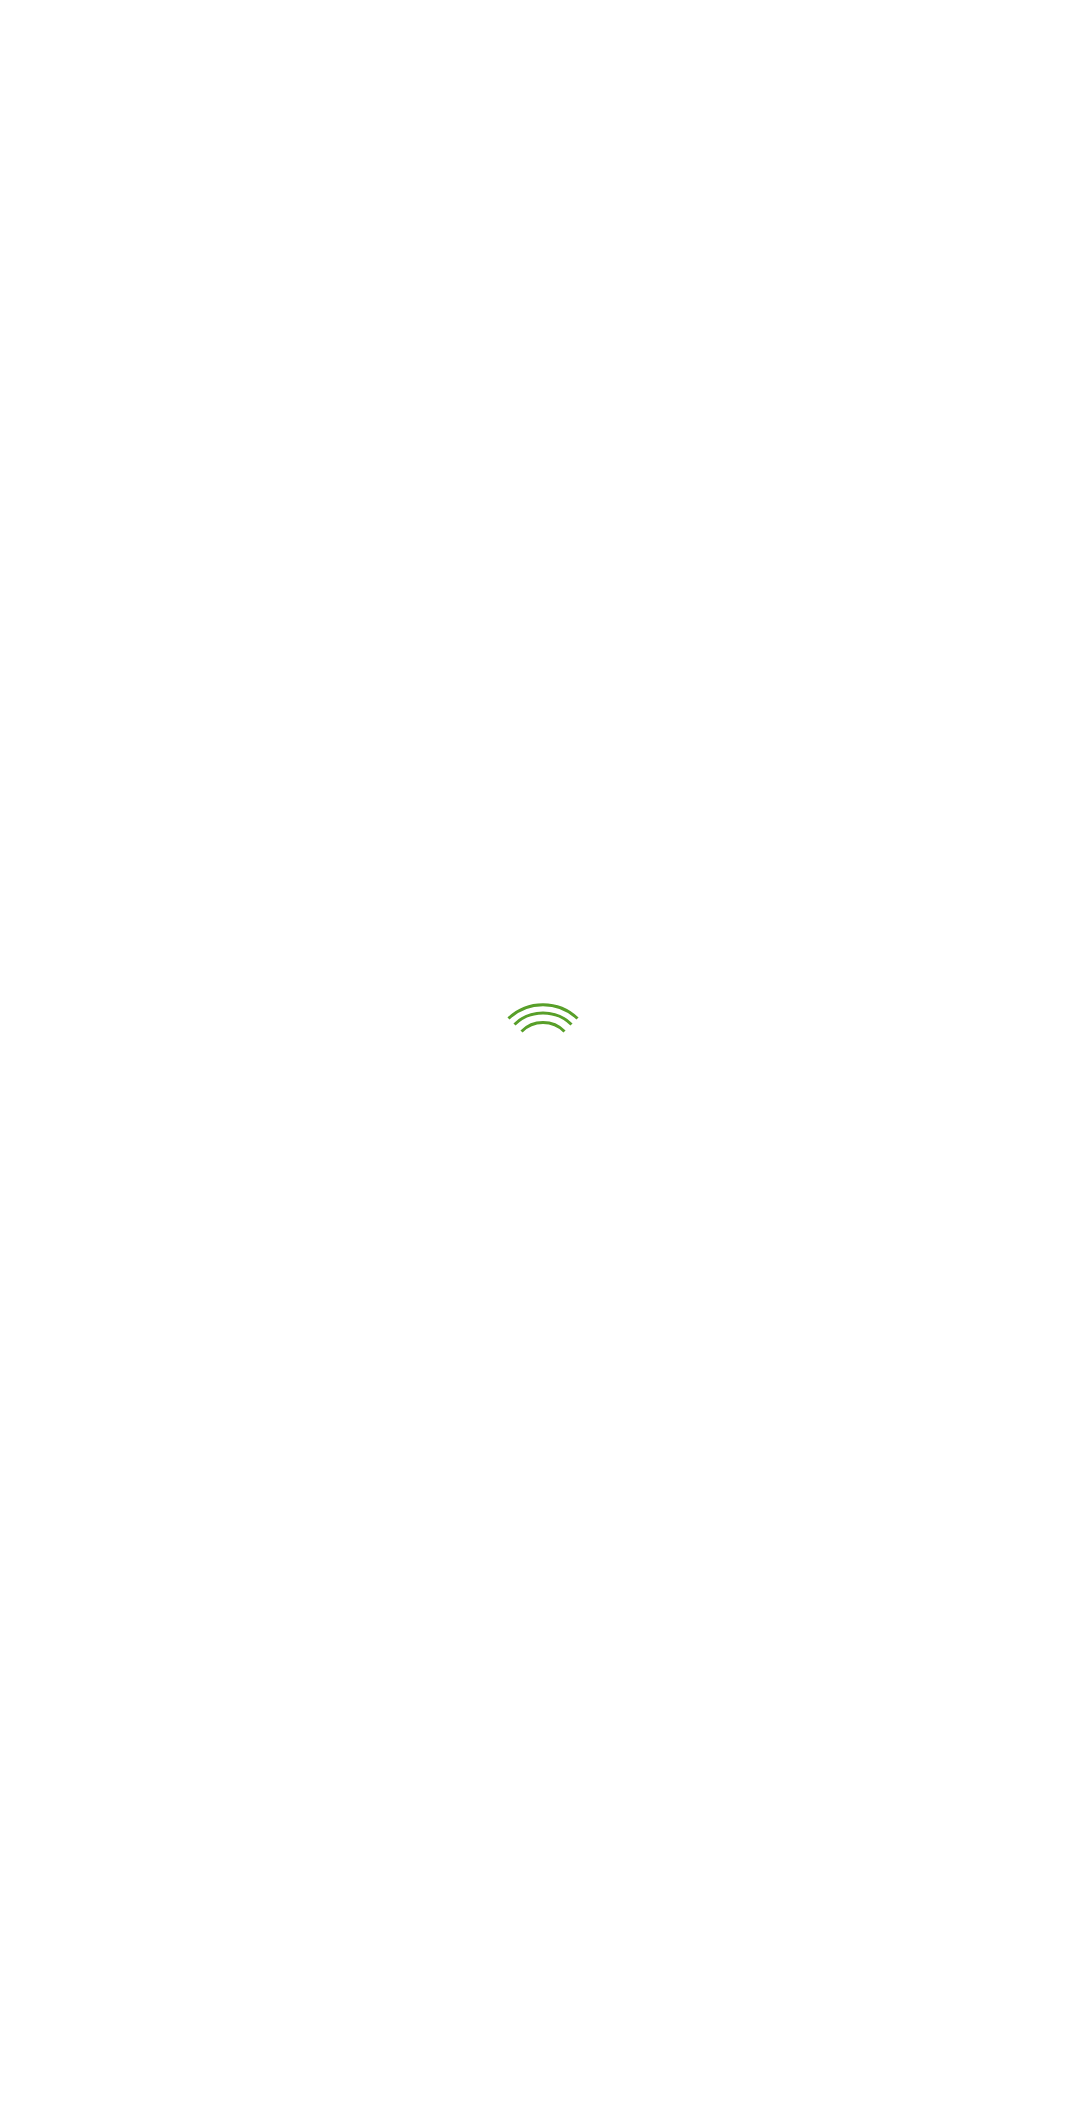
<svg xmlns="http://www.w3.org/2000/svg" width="1086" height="2105">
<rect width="100%" height="100%" fill="#fff"/>
<path d="M508.5 1018.5c19-18.5 50-18.5 69 0" fill="none" stroke="#589f29" stroke-width="3"/>
<path d="M514.5 1024.5c15.5-15.5 41.5-15.5 57 0m-50 7c11.5-12 31.5-12 43 0" fill="none" stroke="#589f29" stroke-width="3"/>
</svg>
